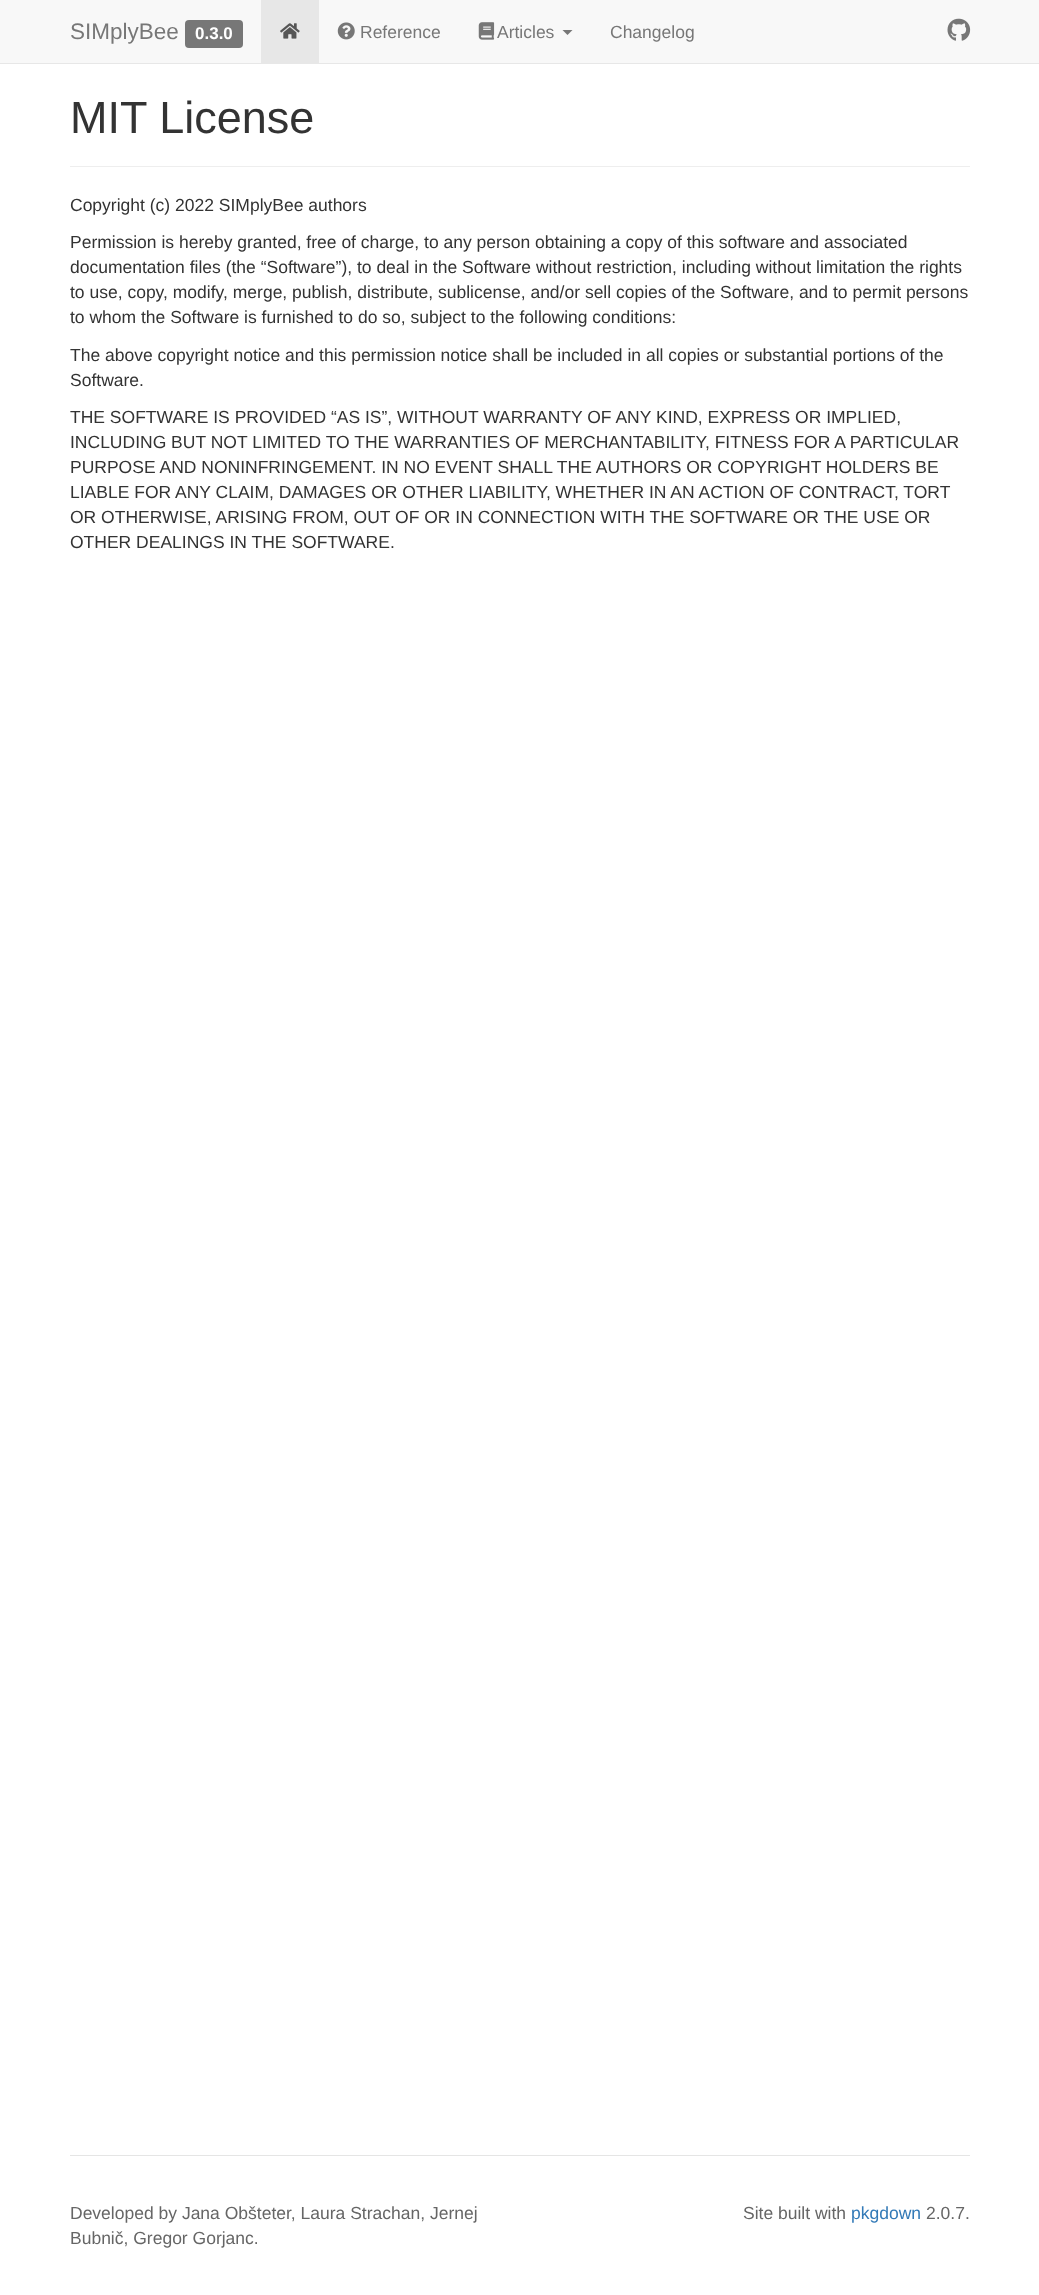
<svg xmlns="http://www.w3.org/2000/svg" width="1039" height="2295">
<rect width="100%" height="100%" fill="#fff"/>
<rect width="1039" height="63" fill="#f8f8f8"/>
<rect y="63" width="1039" height="1" fill="#e7e7e7"/>
<text x="70" y="39" style="font-family:Liberation Sans;font-size:22.5px;fill:#777">SIMplyBee</text>
<rect x="185" y="20" width="58" height="28" rx="4" fill="#777"/>
<text x="195" y="39" style="font-family:Liberation Sans;font-size:17px;font-weight:bold;fill:#fff">0.3.0</text>
<rect x="261" width="58" height="63" fill="#e7e7e7"/>
<image x="280" y="23" width="20" height="16" href="media/1.png"/>
<image x="337" y="22" width="18" height="18" href="media/2.png"/>
<text x="360" y="38" style="font-family:Liberation Sans;font-size:17.5px;fill:#777">Reference</text>
<image x="478" y="22" width="17" height="18" href="media/3.png"/>
<text x="497" y="38" style="font-family:Liberation Sans;font-size:17.5px;fill:#777">Articles</text>
<path d="M562.5 30h10l-5 5z" fill="#777"/>
<text x="610" y="38" style="font-family:Liberation Sans;font-size:17.5px;fill:#777">Changelog</text>
<image x="947" y="18" width="24" height="23" href="media/4.png"/>
<rect x="70" y="166" width="900" height="1" fill="#eee"/>
<text x="70" y="133" style="font-family:Liberation Sans;font-size:45px;fill:#333">MIT License</text>
<text x="70" y="211" style="font-family:Liberation Sans;font-size:17.5px;fill:#333">Copyright (c) 2022 SIMplyBee authors</text>
<text x="70" y="248" style="font-family:Liberation Sans;font-size:17.5px;fill:#333">Permission is hereby granted, free of charge, to any person obtaining a copy of this software and associated</text>
<text x="70" y="273" style="font-family:Liberation Sans;font-size:17.5px;fill:#333">documentation files (the “Software”), to deal in the Software without restriction, including without limitation the rights</text>
<text x="70" y="298" style="font-family:Liberation Sans;font-size:17.5px;fill:#333">to use, copy, modify, merge, publish, distribute, sublicense, and/or sell copies of the Software, and to permit persons</text>
<text x="70" y="323" style="font-family:Liberation Sans;font-size:17.5px;fill:#333">to whom the Software is furnished to do so, subject to the following conditions:</text>
<text x="70" y="361" style="font-family:Liberation Sans;font-size:17.5px;fill:#333">The above copyright notice and this permission notice shall be included in all copies or substantial portions of the</text>
<text x="70" y="386" style="font-family:Liberation Sans;font-size:17.5px;fill:#333">Software.</text>
<text x="70" y="423" style="font-family:Liberation Sans;font-size:17.5px;fill:#333">THE SOFTWARE IS PROVIDED “AS IS”, WITHOUT WARRANTY OF ANY KIND, EXPRESS OR IMPLIED,</text>
<text x="70" y="448" style="font-family:Liberation Sans;font-size:17.5px;fill:#333">INCLUDING BUT NOT LIMITED TO THE WARRANTIES OF MERCHANTABILITY, FITNESS FOR A PARTICULAR</text>
<text x="70" y="473" style="font-family:Liberation Sans;font-size:17.5px;fill:#333">PURPOSE AND NONINFRINGEMENT. IN NO EVENT SHALL THE AUTHORS OR COPYRIGHT HOLDERS BE</text>
<text x="70" y="498" style="font-family:Liberation Sans;font-size:17.5px;fill:#333">LIABLE FOR ANY CLAIM, DAMAGES OR OTHER LIABILITY, WHETHER IN AN ACTION OF CONTRACT, TORT</text>
<text x="70" y="523" style="font-family:Liberation Sans;font-size:17.5px;fill:#333">OR OTHERWISE, ARISING FROM, OUT OF OR IN CONNECTION WITH THE SOFTWARE OR THE USE OR</text>
<text x="70" y="548" style="font-family:Liberation Sans;font-size:17.5px;fill:#333">OTHER DEALINGS IN THE SOFTWARE.</text>
<rect x="70" y="2155" width="900" height="1" fill="#e5e5e5"/>
<text x="70" y="2219" style="font-family:Liberation Sans;font-size:17.5px;fill:#666">Developed by Jana Obšteter, Laura Strachan, Jernej</text>
<text x="70" y="2244" style="font-family:Liberation Sans;font-size:17.5px;fill:#666">Bubnič, Gregor Gorjanc.</text>
<text x="743" y="2219" style="font-family:Liberation Sans;font-size:17.5px;fill:#666">Site built with</text>
<text x="851" y="2219" style="font-family:Liberation Sans;font-size:17.5px;fill:#337ab7">pkgdown</text>
<text x="926" y="2219" style="font-family:Liberation Sans;font-size:17.5px;fill:#666">2.0.7.</text>
</svg>
